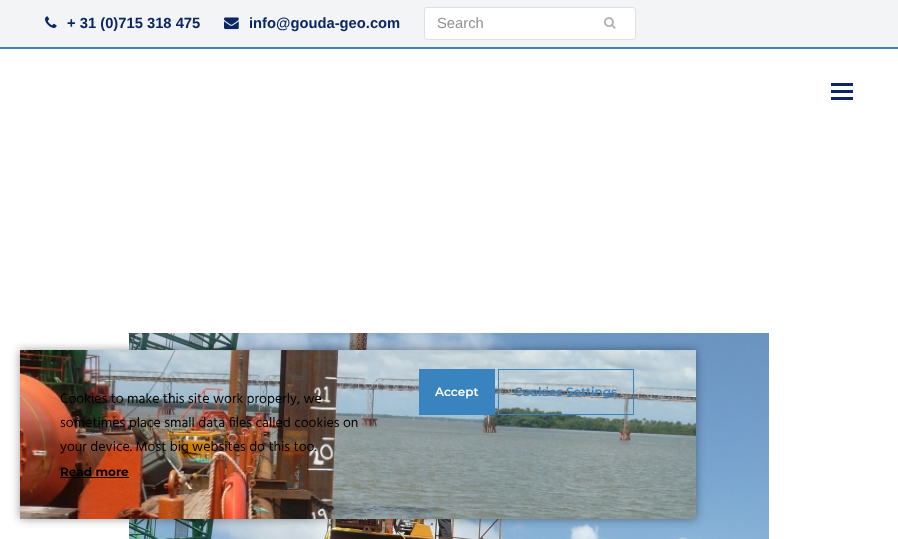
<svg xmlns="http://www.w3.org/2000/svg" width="898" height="539">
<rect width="100%" height="100%" fill="#fff"/>
<rect width="898" height="47" fill="#f2f4f6"/>
<rect y="47" width="898" height="2" fill="#3984be"/>
<image x="45" y="16" width="12" height="12" href="media/1.png"/>
<text x="67" y="28" style="font-family:Liberation Sans;font-size:14.75px;font-weight:bold;fill:#0a2665">+ 31 (0)715 318 475</text>
<image x="224" y="17" width="15" height="13" href="media/2.png"/>
<text x="249" y="28" style="font-family:Liberation Sans;font-size:14.75px;font-weight:bold;fill:#0a2665">info@gouda-geo.com</text>
<rect x="424.5" y="7.5" width="211" height="32" rx="2.5" fill="#fff" stroke="#e0e0e0"/>
<text x="437" y="28" style="font-family:Liberation Sans;font-size:14.75px;fill:#909090">Search</text>
<image x="604" y="17" width="12" height="12" href="media/3.png"/>
<rect x="831" y="90" width="22" height="3" fill="#0a2665"/>
<rect x="831" y="83" width="22" height="3" fill="#0a2665"/>
<rect x="831" y="97" width="22" height="3" fill="#0a2665"/>
<image x="129" y="333" width="640" height="206" href="media/4.png"/>
<rect x="20" y="350" width="676" height="169" fill="#00000066" filter="blur(5px)"/>
<image x="20" y="350" width="676" height="169" href="media/5.png"/>
<text x="60" y="403" style="font-family:Hind;font-size:14px;fill:#000">Cookies to make this site work properly, we</text>
<text x="60" y="427" style="font-family:Hind;font-size:14px;fill:#000">sometimes place small data files called cookies on</text>
<text x="60" y="451" style="font-family:Hind;font-size:14px;fill:#000">your device. Most big websites do this too.</text>
<text x="60" y="476" style="font-family:Montserrat;font-size:12px;font-weight:bold;fill:#000">Read more</text>
<rect x="60" y="477" width="69" height="1" fill="#000"/>
<rect x="419" y="369" width="76" height="46" fill="#3984be"/>
<text x="435" y="396" style="font-family:Montserrat;font-size:12px;font-weight:600;fill:#fff">Accept</text>
<rect x="498.5" y="369.5" width="135" height="45" fill="none" stroke="#3984be"/>
<text x="514" y="396" style="font-family:Montserrat;font-size:12px;font-weight:600;fill:#3984be">Cookies Settings</text>
</svg>
